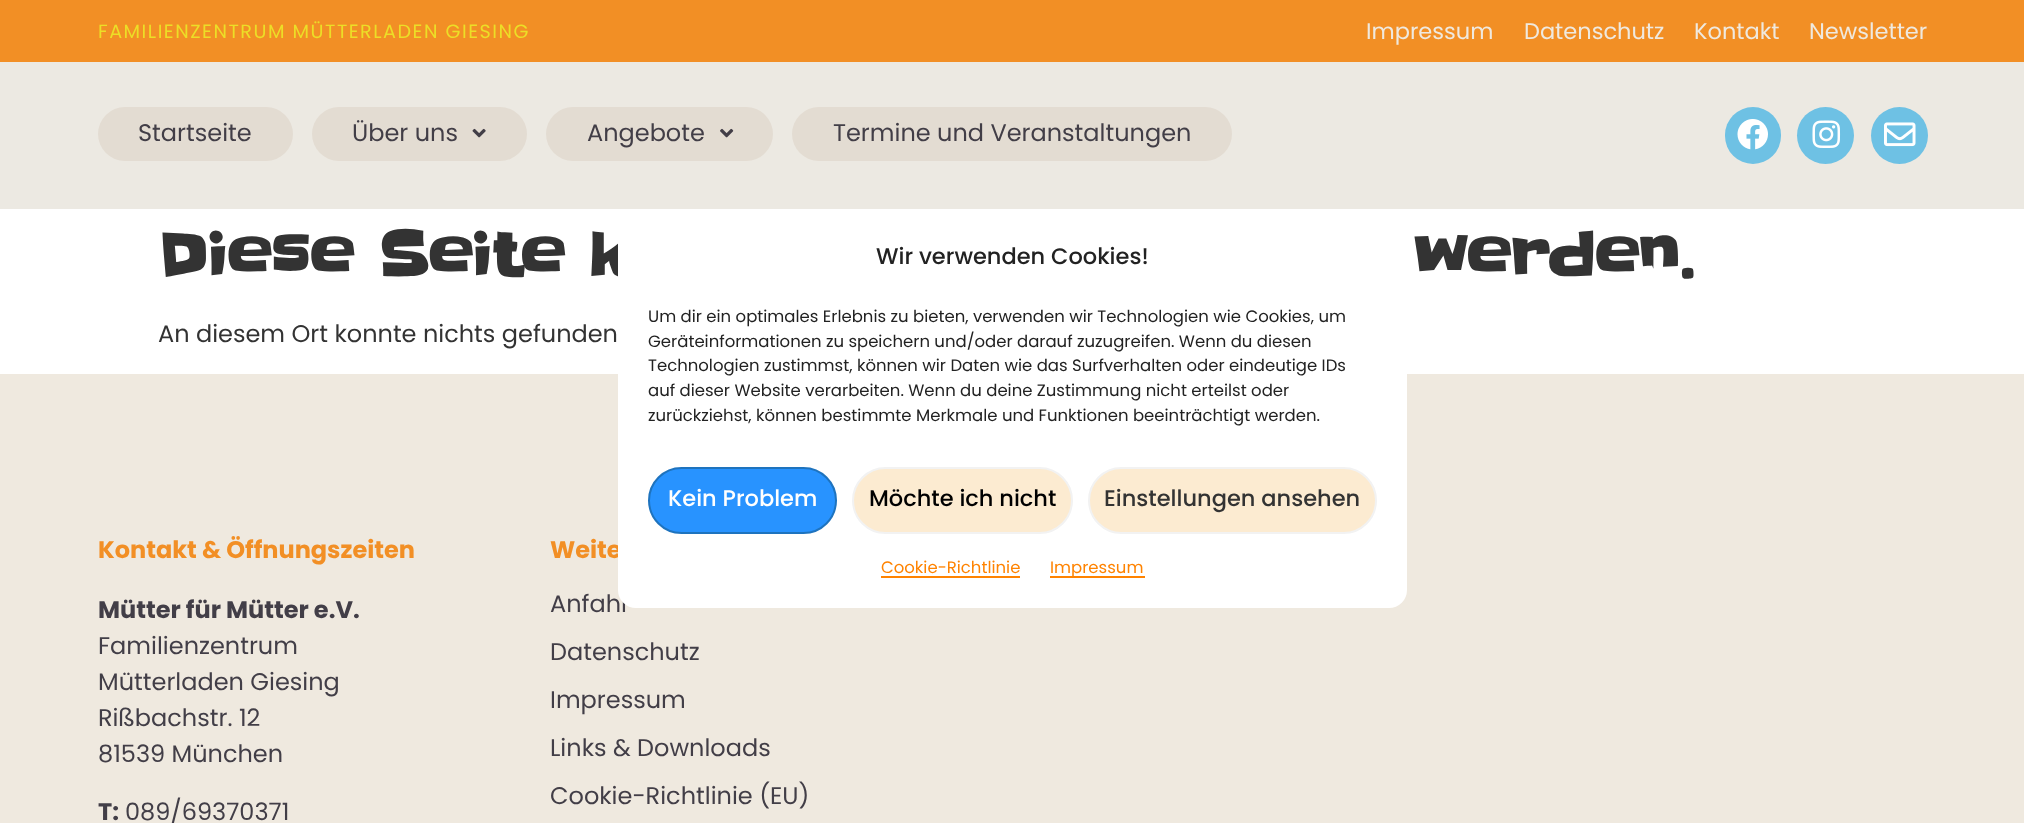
<svg xmlns="http://www.w3.org/2000/svg" width="2024" height="823">
<rect width="100%" height="100%" fill="#fff"/>
<rect width="2024" height="62" fill="#f28f25"/>
<text x="98" y="38" style="font-family:Poppins;font-size:19.2px;letter-spacing:1.5px;fill:#ecde27">FAMILIENZENTRUM MÜTTERLADEN GIESING</text>
<text x="1366" y="39" style="font-family:Poppins;font-size:22.5px;fill:#efe9df">Impressum</text>
<text x="1524" y="39" style="font-family:Poppins;font-size:22.5px;fill:#efe9df">Datenschutz</text>
<text x="1694" y="39" style="font-family:Poppins;font-size:22.5px;fill:#efe9df">Kontakt</text>
<text x="1809" y="39" style="font-family:Poppins;font-size:22.5px;fill:#efe9df">Newsletter</text>
<rect y="62" width="2024" height="147" fill="#ece9e2"/>
<rect x="98" y="107" width="195" height="54" rx="27" fill="#e3dcd2"/>
<text x="138" y="141" style="font-family:Poppins;font-size:24px;fill:#423e47">Startseite</text>
<rect x="312" y="107" width="215" height="54" rx="27" fill="#e3dcd2"/>
<text x="352" y="141" style="font-family:Poppins;font-size:24px;fill:#423e47">Über uns</text>
<image x="472" y="128" width="14" height="10" href="media/1.png"/>
<rect x="546" y="107" width="227" height="54" rx="27" fill="#e3dcd2"/>
<text x="587" y="141" style="font-family:Poppins;font-size:24px;fill:#423e47">Angebote</text>
<image x="720" y="128" width="14" height="10" href="media/2.png"/>
<rect x="792" y="107" width="440" height="54" rx="27" fill="#e3dcd2"/>
<text x="833" y="141" style="font-family:Poppins;font-size:24px;fill:#423e47">Termine und Veranstaltungen</text>
<rect x="1725" y="107" width="56" height="57" rx="28" fill="#6ec1e4"/>
<image x="1737" y="119" width="31" height="31" href="media/3.png"/>
<circle cx="1825.5" cy="135.5" r="28.5" fill="#6ec1e4"/>
<image x="1812" y="120" width="29" height="28" href="media/4.png"/>
<circle cx="1899.5" cy="135.5" r="28.5" fill="#6ec1e4"/>
<image x="1884" y="122" width="32" height="25" href="media/5.png"/>
<text x="158" y="277" style="font-family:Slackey;font-size:60px;font-weight:bold;fill:#333">Diese Seite k</text>
<text x="1414" y="277" style="font-family:Slackey;font-size:60px;font-weight:bold;fill:#333">werden.</text>
<text x="158" y="342" style="font-family:Poppins;font-size:24px;fill:#333">An diesem Ort konnte nichts gefunden</text>
<rect y="374" width="2024" height="449" fill="#efe9df"/>
<text x="98" y="558" style="font-family:Poppins;font-size:24px;font-weight:bold;fill:#f28f25">Kontakt &amp; Öffnungszeiten</text>
<text x="98" y="618" style="font-family:Poppins;font-size:24px;font-weight:bold;fill:#423e47">Mütter für Mütter e.V.</text>
<text x="98" y="654" style="font-family:Poppins;font-size:24px;fill:#423e47">Familienzentrum</text>
<text x="98" y="690" style="font-family:Poppins;font-size:24px;fill:#423e47">Mütterladen Giesing</text>
<text x="98" y="726" style="font-family:Poppins;font-size:24px;fill:#423e47">Rißbachstr. 12</text>
<text x="98" y="762" style="font-family:Poppins;font-size:24px;fill:#423e47">81539 München</text>
<text x="98" y="820" style="font-family:Poppins;font-size:24px;font-weight:bold;fill:#423e47">T:</text>
<text x="125" y="820" style="font-family:Poppins;font-size:24px;fill:#423e47">089/69370371</text>
<text x="550" y="558" style="font-family:Poppins;font-size:24px;font-weight:bold;fill:#f28f25">Weite</text>
<text x="550" y="612" style="font-family:Poppins;font-size:24px;fill:#423e47">Anfahr</text>
<text x="550" y="660" style="font-family:Poppins;font-size:24px;fill:#423e47">Datenschutz</text>
<text x="550" y="708" style="font-family:Poppins;font-size:24px;fill:#423e47">Impressum</text>
<text x="550" y="756" style="font-family:Poppins;font-size:24px;fill:#423e47">Links &amp; Downloads</text>
<text x="550" y="804" style="font-family:Poppins;font-size:24px;fill:#423e47">Cookie-Richtlinie (EU)</text>
<rect x="618" y="219" width="789" height="389" rx="18" fill="#fff"/>
<text x="876" y="264" style="font-family:Poppins;font-size:22.5px;font-weight:500;fill:#222">Wir verwenden Cookies!</text>
<text x="648" y="322" style="font-family:Poppins;font-size:16.5px;fill:#222">Um dir ein optimales Erlebnis zu bieten, verwenden wir Technologien wie Cookies, um</text>
<text x="648" y="347" style="font-family:Poppins;font-size:16.5px;fill:#222">Geräteinformationen zu speichern und/oder darauf zuzugreifen. Wenn du diesen</text>
<text x="648" y="371" style="font-family:Poppins;font-size:16.5px;fill:#222">Technologien zustimmst, können wir Daten wie das Surfverhalten oder eindeutige IDs</text>
<text x="648" y="396" style="font-family:Poppins;font-size:16.5px;fill:#222">auf dieser Website verarbeiten. Wenn du deine Zustimmung nicht erteilst oder</text>
<text x="648" y="421" style="font-family:Poppins;font-size:16.5px;fill:#222">zurückziehst, können bestimmte Merkmale und Funktionen beeinträchtigt werden.</text>
<rect x="649" y="468" width="187" height="65" rx="32.5" fill="#2893ff" stroke="#1e73be" stroke-width="2"/>
<text x="668" y="506" style="font-family:Poppins;font-size:22.5px;font-weight:500;fill:#fff">Kein Problem</text>
<rect x="853" y="468" width="219" height="65" rx="32.5" fill="#fcebd1" stroke="#f2f2f2" stroke-width="2"/>
<text x="869" y="506" style="font-family:Poppins;font-size:22.5px;font-weight:500;fill:#000">Möchte ich nicht</text>
<rect x="1089" y="468" width="287" height="65" rx="32.5" fill="#fcebd1" stroke="#f2f2f2" stroke-width="2"/>
<text x="1104" y="506" style="font-family:Poppins;font-size:22.5px;font-weight:500;fill:#333">Einstellungen ansehen</text>
<text x="881" y="573" style="font-family:Poppins;font-size:16.5px;fill:#ff8300">Cookie-Richtlinie</text>
<rect x="881" y="576" width="139" height="2" fill="#ff8300"/>
<rect x="1050" y="576" width="95" height="2" fill="#ff8300"/>
<text x="1050" y="573" style="font-family:Poppins;font-size:16.5px;fill:#ff8300">Impressum</text>
</svg>
